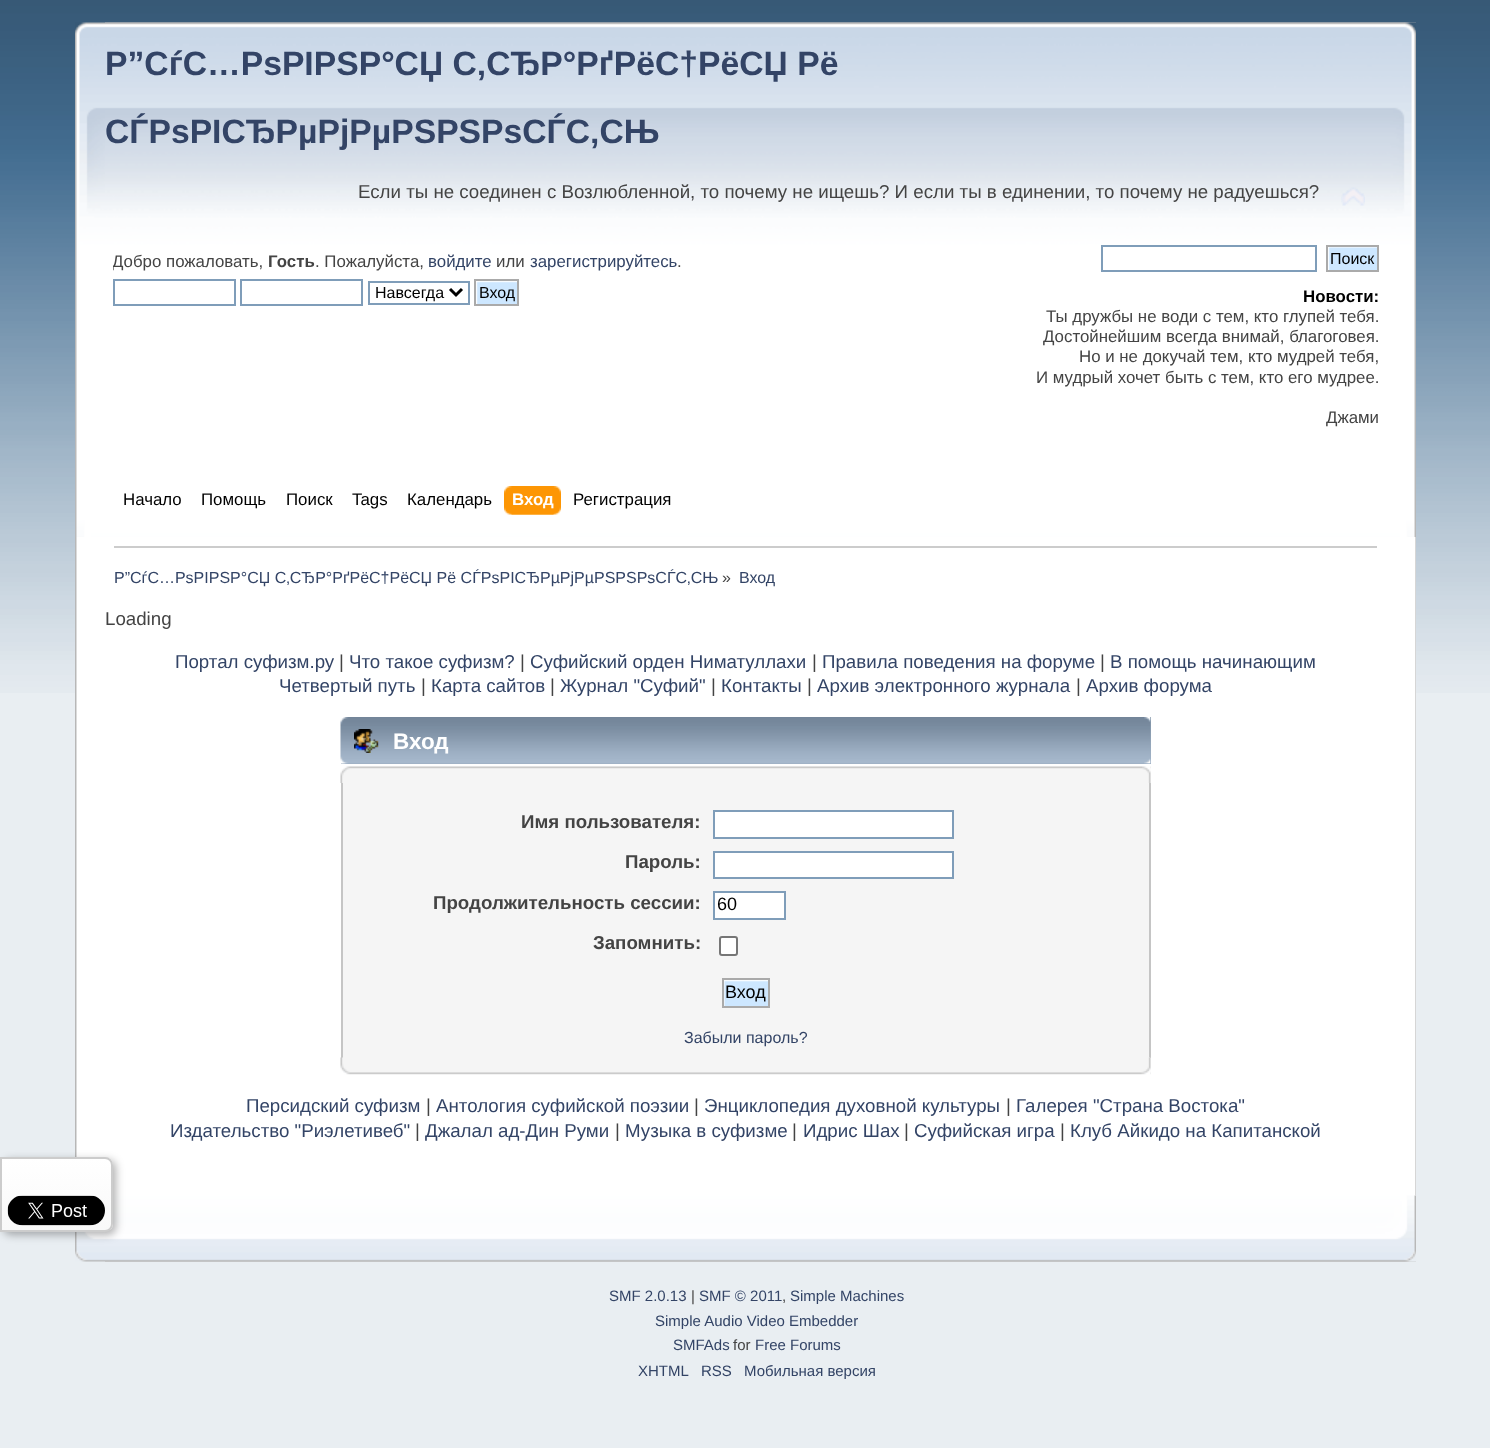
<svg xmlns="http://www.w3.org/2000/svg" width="1490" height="1448">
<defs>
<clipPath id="clip1"><rect x="113" y="245" width="633" height="73"/></clipPath>
<clipPath id="clip2"><path d="M0 1157h105c4.5 0 8 3.5 8 8v59c0 4.5-3.5 8-8 8h-105z"/></clipPath>
<linearGradient id="g1" gradientUnits="userSpaceOnUse" x1="1.5" y1="1158" x2="1.5" y2="1230"><stop offset="0" stop-color="#fff"/><stop offset="1" stop-color="#f9f9f9"/></linearGradient>
</defs>
<rect width="100%" height="100%" fill="#e9eef2"/>
<image x="0" y="0" width="1490" height="693" href="media/1.png"/>
<image x="75" y="22" width="1341" height="515" href="media/2.png"/>
<image x="105" y="22" width="1311" height="515" href="media/3.png"/>
<text x="105" y="75" style="font-family:Liberation Sans;font-size:33.7px;font-weight:bold;fill:#346">Р”СѓС…РѕРІРЅР°СЏ С‚СЂР°РґРёС†РёСЏ Рё</text>
<text x="105" y="143" style="font-family:Liberation Sans;font-size:33.7px;font-weight:bold;fill:#346">СЃРѕРІСЂРµРјРµРЅРЅРѕСЃС‚СЊ</text>
<text x="358" y="198" style="font-family:Liberation Sans;font-size:18.72px;fill:#444">Если ты не соединен с Возлюбленной, то почему не ищешь? И если ты в единении, то почему не радуешься?</text>
<image x="1341" y="187" width="24" height="19" href="media/4.png"/>
<g clip-path="url(#clip1)">
<text x="112" y="267" style="font-family:Liberation Sans;font-size:16.85px;fill:#444">Добро пожаловать,</text>
</g>
<text x="268" y="267" style="font-family:Liberation Sans;font-size:16.85px;font-weight:bold;fill:#444">Гость</text>
<text x="315" y="267" style="font-family:Liberation Sans;font-size:16.85px;fill:#444">. Пожалуйста,</text>
<text x="428" y="267" style="font-family:Liberation Sans;font-size:16.85px;fill:#346">войдите</text>
<text x="496" y="267" style="font-family:Liberation Sans;font-size:16.85px;fill:#444">или</text>
<text x="530" y="267" style="font-family:Liberation Sans;font-size:16.85px;fill:#346">зарегистрируйтесь</text>
<text x="677" y="267" style="font-family:Liberation Sans;font-size:16.85px;fill:#444">.</text>
<rect x="114" y="280" width="121" height="25" fill="none" stroke="#7f9db9" stroke-width="2"/>
<rect x="241" y="280" width="121" height="25" fill="none" stroke="#7f9db9" stroke-width="2"/>
<rect x="369" y="282" width="100" height="22" fill="none" stroke="#7f9db9" stroke-width="2"/>
<path d="M450 289l6 6l6-6" fill="none" stroke="#000" stroke-width="3"/>
<text x="375" y="298" style="font-family:Liberation Sans;font-size:16px;fill:#000">Навсегда</text>
<image x="476" y="281" width="41" height="23" href="media/5.png"/>
<rect x="475" y="280" width="43" height="25" fill="none" stroke="#aaa" stroke-width="2"/>
<text x="479" y="298" style="font-family:Liberation Sans;font-size:16px;fill:#000">Вход</text>
<rect x="1102" y="246" width="214" height="25" fill="none" stroke="#7f9db9" stroke-width="2"/>
<image x="1328" y="247" width="49" height="23" href="media/6.png"/>
<rect x="1327" y="246" width="51" height="25" fill="none" stroke="#aaa" stroke-width="2"/>
<text x="1330" y="264" style="font-family:Liberation Sans;font-size:16px;fill:#000">Поиск</text>
<text x="1303" y="302" style="font-family:Liberation Sans;font-size:16.85px;font-weight:bold;fill:#000">Новости:</text>
<text x="1046" y="322" style="font-family:Liberation Sans;font-size:16.85px;fill:#444">Ты дружбы не води с тем, кто глупей тебя.</text>
<text x="1043" y="342" style="font-family:Liberation Sans;font-size:16.85px;fill:#444">Достойнейшим всегда внимай, благоговея.</text>
<text x="1079" y="362" style="font-family:Liberation Sans;font-size:16.85px;fill:#444">Но и не докучай тем, кто мудрей тебя,</text>
<text x="1036" y="383" style="font-family:Liberation Sans;font-size:16.85px;fill:#444">И мудрый хочет быть с тем, кто его мудрее.</text>
<text x="1326" y="423" style="font-family:Liberation Sans;font-size:16.85px;fill:#444">Джами</text>
<text x="123" y="505" style="font-family:Liberation Sans;font-size:16.85px;fill:#000">Начало</text>
<text x="201" y="505" style="font-family:Liberation Sans;font-size:16.85px;fill:#000">Помощь</text>
<text x="286" y="505" style="font-family:Liberation Sans;font-size:16.85px;fill:#000">Поиск</text>
<text x="352" y="505" style="font-family:Liberation Sans;font-size:16.85px;fill:#000">Tags</text>
<text x="407" y="505" style="font-family:Liberation Sans;font-size:16.85px;fill:#000">Календарь</text>
<image x="511" y="486" width="50" height="29" href="media/7.png"/>
<image x="504" y="486" width="50" height="29" href="media/8.png"/>
<text x="512" y="505" style="font-family:Liberation Sans;font-size:16.85px;font-weight:bold;fill:#fff">Вход</text>
<text x="573" y="505" style="font-family:Liberation Sans;font-size:16.85px;fill:#000">Регистрация</text>
<rect x="77" y="537" width="1339" height="659" fill="#fff"/>
<image x="75" y="537" width="2" height="620" href="media/9.png"/>
<image x="1415" y="537" width="1" height="659" href="media/10.png"/>
<rect x="114" y="546" width="1263" height="2" fill="#ccc"/>
<text x="114" y="583" style="font-family:Liberation Sans;font-size:16px;fill:#346">Р”СѓС…РѕРІРЅР°СЏ С‚СЂР°РґРёС†РёСЏ Рё СЃРѕРІСЂРµРјРµРЅРЅРѕСЃС‚СЊ</text>
<text x="722" y="583" style="font-family:Liberation Sans;font-size:16px;fill:#444">»</text>
<text x="739" y="583" style="font-family:Liberation Sans;font-size:16px;fill:#346">Вход</text>
<text x="105" y="625" style="font-family:Liberation Sans;font-size:18.72px;fill:#444">Loading</text>
<text x="175" y="668" style="font-family:Liberation Sans;font-size:18.72px;fill:#346">Портал суфизм.ру</text>
<text x="339" y="668" style="font-family:Liberation Sans;font-size:18.72px;fill:#444">|</text>
<text x="349" y="668" style="font-family:Liberation Sans;font-size:18.72px;fill:#346">Что такое суфизм?</text>
<text x="520" y="668" style="font-family:Liberation Sans;font-size:18.72px;fill:#444">|</text>
<text x="530" y="668" style="font-family:Liberation Sans;font-size:18.72px;fill:#346">Суфийский орден Ниматуллахи</text>
<text x="812" y="668" style="font-family:Liberation Sans;font-size:18.72px;fill:#444">|</text>
<text x="822" y="668" style="font-family:Liberation Sans;font-size:18.72px;fill:#346">Правила поведения на форуме</text>
<text x="1100" y="668" style="font-family:Liberation Sans;font-size:18.72px;fill:#444">|</text>
<text x="1110" y="668" style="font-family:Liberation Sans;font-size:18.72px;fill:#346">В помощь начинающим</text>
<text x="279" y="692" style="font-family:Liberation Sans;font-size:18.72px;fill:#346">Четвертый путь</text>
<text x="421" y="692" style="font-family:Liberation Sans;font-size:18.72px;fill:#444">|</text>
<text x="431" y="692" style="font-family:Liberation Sans;font-size:18.72px;fill:#346">Карта сайтов</text>
<text x="550" y="692" style="font-family:Liberation Sans;font-size:18.72px;fill:#444">|</text>
<text x="560" y="692" style="font-family:Liberation Sans;font-size:18.72px;fill:#346">Журнал "Суфий"</text>
<text x="711" y="692" style="font-family:Liberation Sans;font-size:18.72px;fill:#444">|</text>
<text x="721" y="692" style="font-family:Liberation Sans;font-size:18.72px;fill:#346">Контакты</text>
<text x="807" y="692" style="font-family:Liberation Sans;font-size:18.72px;fill:#444">|</text>
<text x="817" y="692" style="font-family:Liberation Sans;font-size:18.72px;fill:#346">Архив электронного журнала</text>
<text x="1076" y="692" style="font-family:Liberation Sans;font-size:18.72px;fill:#444">|</text>
<text x="1086" y="692" style="font-family:Liberation Sans;font-size:18.72px;fill:#346">Архив форума</text>
<rect x="341" y="717" width="810" height="47" fill="#99abbf"/>
<image x="340" y="717" width="811" height="47" href="media/11.png"/>
<image x="1144" y="717" width="7" height="47" href="media/12.png"/>
<image x="354" y="729" width="25" height="24" href="media/13.png"/>
<text x="393" y="749" style="font-family:Liberation Sans;font-size:22.5px;font-weight:bold;fill:#fff">Вход</text>
<image x="340" y="766" width="811" height="17" href="media/14.png"/>
<image x="1142" y="766" width="9" height="17" href="media/15.png"/>
<rect x="343" y="783" width="806" height="275" fill="#f5f5f5"/>
<rect x="1149" y="783" width="2" height="275" fill="#c5c5c5"/>
<rect x="341" y="783" width="2" height="275" fill="#c5c5c5"/>
<text x="521" y="828" style="font-family:Liberation Sans;font-size:18.72px;font-weight:bold;fill:#444">Имя пользователя:</text>
<rect x="714" y="811" width="239" height="27" fill="#fff" stroke="#7f9db9" stroke-width="2"/>
<text x="625" y="868" style="font-family:Liberation Sans;font-size:18.72px;font-weight:bold;fill:#444">Пароль:</text>
<rect x="714" y="852" width="239" height="26" fill="#fff" stroke="#7f9db9" stroke-width="2"/>
<text x="433" y="909" style="font-family:Liberation Sans;font-size:18.72px;font-weight:bold;fill:#444">Продолжительность сессии:</text>
<rect x="714" y="892" width="71" height="27" fill="#fff" stroke="#7f9db9" stroke-width="2"/>
<text x="717" y="910" style="font-family:Liberation Sans;font-size:18px;fill:#000">60</text>
<text x="593" y="949" style="font-family:Liberation Sans;font-size:18.72px;font-weight:bold;fill:#444">Запомнить:</text>
<rect x="720" y="937" width="17" height="18" rx="2" fill="#fff" stroke="#767676" stroke-width="2"/>
<image x="724" y="980" width="44" height="26" href="media/16.png"/>
<rect x="723" y="979" width="46" height="28" fill="none" stroke="#aaa" stroke-width="2"/>
<text x="725" y="998" style="font-family:Liberation Sans;font-size:18px;fill:#000">Вход</text>
<text x="684" y="1043" style="font-family:Liberation Sans;font-size:16px;fill:#346">Забыли пароль?</text>
<image x="340" y="1057" width="811" height="18" href="media/17.png"/>
<image x="1141" y="1057" width="10" height="18" href="media/18.png"/>
<text x="246" y="1112" style="font-family:Liberation Sans;font-size:18.72px;fill:#346">Персидский суфизм</text>
<text x="426" y="1112" style="font-family:Liberation Sans;font-size:18.72px;fill:#444">|</text>
<text x="436" y="1112" style="font-family:Liberation Sans;font-size:18.72px;fill:#346">Антология суфийской поэзии</text>
<text x="694" y="1112" style="font-family:Liberation Sans;font-size:18.72px;fill:#444">|</text>
<text x="704" y="1112" style="font-family:Liberation Sans;font-size:18.72px;fill:#346">Энциклопедия духовной культуры</text>
<text x="1006" y="1112" style="font-family:Liberation Sans;font-size:18.72px;fill:#444">|</text>
<text x="1016" y="1112" style="font-family:Liberation Sans;font-size:18.72px;fill:#346">Галерея "Страна Востока"</text>
<text x="170" y="1137" style="font-family:Liberation Sans;font-size:18.72px;fill:#346">Издательство "Риэлетивеб"</text>
<text x="415" y="1137" style="font-family:Liberation Sans;font-size:18.72px;fill:#444">|</text>
<text x="425" y="1137" style="font-family:Liberation Sans;font-size:18.72px;fill:#346">Джалал ад-Дин Руми</text>
<text x="615" y="1137" style="font-family:Liberation Sans;font-size:18.72px;fill:#444">|</text>
<text x="625" y="1137" style="font-family:Liberation Sans;font-size:18.72px;fill:#346">Музыка в суфизме</text>
<text x="792" y="1137" style="font-family:Liberation Sans;font-size:18.72px;fill:#444">|</text>
<text x="803" y="1137" style="font-family:Liberation Sans;font-size:18.72px;fill:#346">Идрис Шах</text>
<text x="904" y="1137" style="font-family:Liberation Sans;font-size:18.72px;fill:#444">|</text>
<text x="914" y="1137" style="font-family:Liberation Sans;font-size:18.72px;fill:#346">Суфийская игра</text>
<text x="1060" y="1137" style="font-family:Liberation Sans;font-size:18.72px;fill:#444">|</text>
<text x="1070" y="1137" style="font-family:Liberation Sans;font-size:18.72px;fill:#346">Клуб Айкидо на Капитанской</text>
<image x="75" y="1195" width="1341" height="67" href="media/20.png"/>
<image x="105" y="1195" width="1311" height="67" href="media/21.png"/>
<rect x="3" y="1160" width="113" height="75" rx="8" fill="#0000004d" filter="blur(4px)"/>
<g clip-path="url(#clip2)">
<rect x="2" y="1158" width="111" height="72" fill="url(#g1)"/>
</g>
<path d="M1 1158h104c4 0 7 3 7 7v59c0 4-3 7-7 7h-104z" fill="none" stroke="#ccc" stroke-width="2"/>
<image x="7" y="1195" width="98" height="31" href="media/19.png"/>
<text x="609" y="1301" style="font-family:Liberation Sans;font-size:15px;fill:#346">SMF 2.0.13</text>
<text x="691" y="1301" style="font-family:Liberation Sans;font-size:15px;fill:#444">|</text>
<text x="699" y="1301" style="font-family:Liberation Sans;font-size:15px;fill:#346">SMF © 2011</text>
<text x="782" y="1301" style="font-family:Liberation Sans;font-size:15px;fill:#444">,</text>
<text x="790" y="1301" style="font-family:Liberation Sans;font-size:15px;fill:#346">Simple Machines</text>
<text x="655" y="1326" style="font-family:Liberation Sans;font-size:15px;fill:#346">Simple Audio Video Embedder</text>
<text x="673" y="1350" style="font-family:Liberation Sans;font-size:15px;fill:#346">SMFAds</text>
<text x="733" y="1350" style="font-family:Liberation Sans;font-size:15px;fill:#444">for</text>
<text x="755" y="1350" style="font-family:Liberation Sans;font-size:15px;fill:#346">Free Forums</text>
<text x="638" y="1376" style="font-family:Liberation Sans;font-size:15px;fill:#346">XHTML</text>
<text x="701" y="1376" style="font-family:Liberation Sans;font-size:15px;fill:#346">RSS</text>
<text x="744" y="1376" style="font-family:Liberation Sans;font-size:15px;fill:#346">Мобильная версия</text>
</svg>
